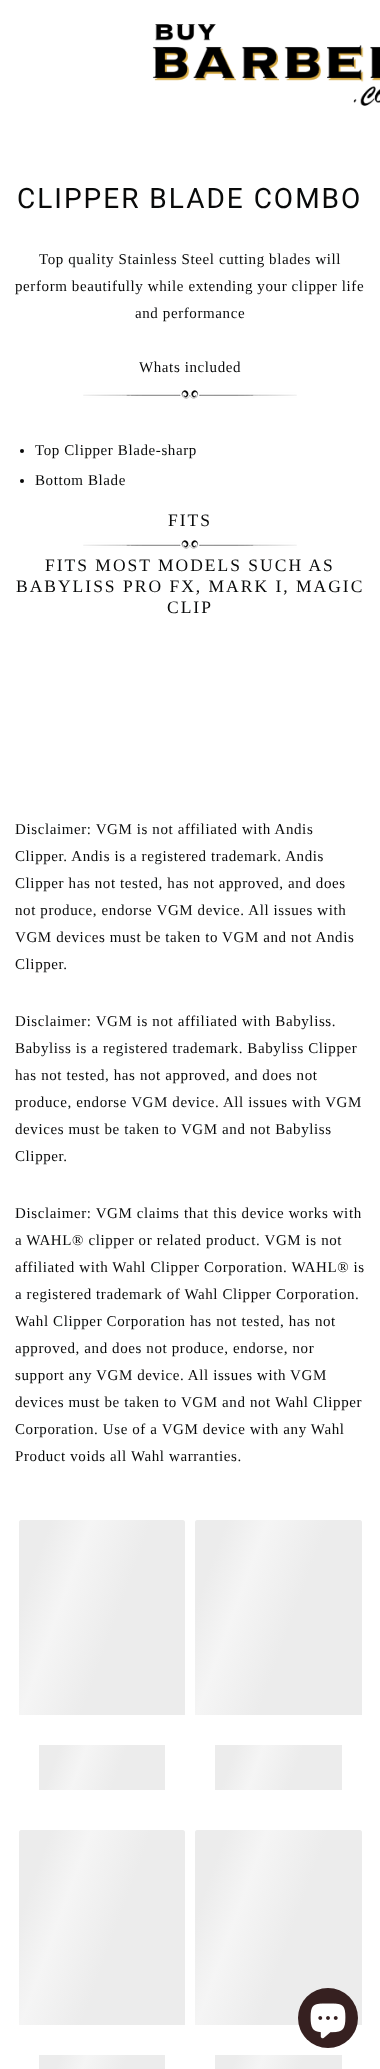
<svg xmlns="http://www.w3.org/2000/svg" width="380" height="2069">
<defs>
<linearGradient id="g1" gradientUnits="userSpaceOnUse" x1="7.1" y1="1553" x2="363" y2="1682"><stop offset="0.08" stop-color="#ececec"/><stop offset="0.18" stop-color="#f5f5f5"/><stop offset="0.33" stop-color="#ececec"/></linearGradient>
<linearGradient id="g2" gradientUnits="userSpaceOnUse" x1="47" y1="1724" x2="283" y2="1811"><stop offset="0.08" stop-color="#ececec"/><stop offset="0.18" stop-color="#f5f5f5"/><stop offset="0.33" stop-color="#ececec"/></linearGradient>
<linearGradient id="g3" gradientUnits="userSpaceOnUse" x1="7.1" y1="1863" x2="363" y2="1992"><stop offset="0.08" stop-color="#ececec"/><stop offset="0.18" stop-color="#f5f5f5"/><stop offset="0.33" stop-color="#ececec"/></linearGradient>
<linearGradient id="g4" gradientUnits="userSpaceOnUse" x1="47" y1="2034" x2="283" y2="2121"><stop offset="0.08" stop-color="#ececec"/><stop offset="0.18" stop-color="#f5f5f5"/><stop offset="0.33" stop-color="#ececec"/></linearGradient>
<linearGradient id="g5" gradientUnits="userSpaceOnUse" x1="183" y1="1552" x2="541" y2="1683"><stop offset="0.08" stop-color="#ececec"/><stop offset="0.18" stop-color="#f5f5f5"/><stop offset="0.33" stop-color="#ececec"/></linearGradient>
<linearGradient id="g6" gradientUnits="userSpaceOnUse" x1="223" y1="1724" x2="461" y2="1811"><stop offset="0.08" stop-color="#ececec"/><stop offset="0.18" stop-color="#f5f5f5"/><stop offset="0.33" stop-color="#ececec"/></linearGradient>
<linearGradient id="g7" gradientUnits="userSpaceOnUse" x1="183" y1="1862" x2="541" y2="1993"><stop offset="0.08" stop-color="#ececec"/><stop offset="0.18" stop-color="#f5f5f5"/><stop offset="0.33" stop-color="#ececec"/></linearGradient>
<linearGradient id="g8" gradientUnits="userSpaceOnUse" x1="223" y1="2034" x2="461" y2="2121"><stop offset="0.08" stop-color="#ececec"/><stop offset="0.18" stop-color="#f5f5f5"/><stop offset="0.33" stop-color="#ececec"/></linearGradient>
</defs>
<rect width="100%" height="100%" fill="#fff"/>
<image x="152" y="24" width="228" height="82" href="media/1.png"/>
<text x="17" y="208" style="font-family:Roboto;font-size:28px;letter-spacing:2px;fill:#090a0a">CLIPPER BLADE COMBO</text>
<text x="39" y="264" style="font-family:Liberation Serif;font-size:15px;letter-spacing:0.6px;fill:#090a0a">Top quality Stainless Steel cutting blades will</text>
<text x="15" y="291" style="font-family:Liberation Serif;font-size:15px;letter-spacing:0.6px;fill:#090a0a">perform beautifully while extending your clipper life</text>
<text x="135" y="318" style="font-family:Liberation Serif;font-size:15px;letter-spacing:0.6px;fill:#090a0a">and performance</text>
<text x="139" y="372" style="font-family:Liberation Serif;font-size:15px;letter-spacing:0.6px;fill:#090a0a">Whats included</text>
<image x="83" y="390" width="214" height="9" href="media/2.png"/>
<circle cx="22" cy="451" r="2" fill="#090a0a"/>
<text x="35" y="455" style="font-family:Liberation Serif;font-size:15px;letter-spacing:0.6px;fill:#090a0a">Top Clipper Blade-sharp</text>
<circle cx="22" cy="481" r="2" fill="#090a0a"/>
<text x="35" y="485" style="font-family:Liberation Serif;font-size:15px;letter-spacing:0.6px;fill:#090a0a">Bottom Blade</text>
<text x="168" y="526" style="font-family:Liberation Serif;font-size:17.5px;letter-spacing:2px;fill:#090a0a">FITS</text>
<image x="83" y="540" width="214" height="9" href="media/2.png"/>
<text x="45" y="571" style="font-family:Liberation Serif;font-size:17.5px;letter-spacing:2px;fill:#090a0a">FITS MOST MODELS SUCH AS</text>
<text x="16" y="592" style="font-family:Liberation Serif;font-size:17.5px;letter-spacing:2px;fill:#090a0a">BABYLISS PRO FX, MARK I, MAGIC</text>
<text x="167" y="613" style="font-family:Liberation Serif;font-size:17.5px;letter-spacing:2px;fill:#090a0a">CLIP</text>
<text x="15" y="834" style="font-family:Liberation Serif;font-size:15px;letter-spacing:0.6px;fill:#090a0a">Disclaimer: VGM is not affiliated with Andis</text>
<text x="15" y="861" style="font-family:Liberation Serif;font-size:15px;letter-spacing:0.6px;fill:#090a0a">Clipper. Andis is a registered trademark. Andis</text>
<text x="15" y="888" style="font-family:Liberation Serif;font-size:15px;letter-spacing:0.6px;fill:#090a0a">Clipper has not tested, has not approved, and does</text>
<text x="15" y="915" style="font-family:Liberation Serif;font-size:15px;letter-spacing:0.6px;fill:#090a0a">not produce, endorse VGM device. All issues with</text>
<text x="15" y="942" style="font-family:Liberation Serif;font-size:15px;letter-spacing:0.6px;fill:#090a0a">VGM devices must be taken to VGM and not Andis</text>
<text x="15" y="969" style="font-family:Liberation Serif;font-size:15px;letter-spacing:0.6px;fill:#090a0a">Clipper.</text>
<text x="15" y="1026" style="font-family:Liberation Serif;font-size:15px;letter-spacing:0.6px;fill:#090a0a">Disclaimer: VGM is not affiliated with Babyliss.</text>
<text x="15" y="1053" style="font-family:Liberation Serif;font-size:15px;letter-spacing:0.6px;fill:#090a0a">Babyliss is a registered trademark. Babyliss Clipper</text>
<text x="15" y="1080" style="font-family:Liberation Serif;font-size:15px;letter-spacing:0.6px;fill:#090a0a">has not tested, has not approved, and does not</text>
<text x="15" y="1107" style="font-family:Liberation Serif;font-size:15px;letter-spacing:0.6px;fill:#090a0a">produce, endorse VGM device. All issues with VGM</text>
<text x="15" y="1134" style="font-family:Liberation Serif;font-size:15px;letter-spacing:0.6px;fill:#090a0a">devices must be taken to VGM and not Babyliss</text>
<text x="15" y="1161" style="font-family:Liberation Serif;font-size:15px;letter-spacing:0.6px;fill:#090a0a">Clipper.</text>
<text x="15" y="1218" style="font-family:Liberation Serif;font-size:15px;letter-spacing:0.6px;fill:#090a0a">Disclaimer: VGM claims that this device works with</text>
<text x="15" y="1245" style="font-family:Liberation Serif;font-size:15px;letter-spacing:0.6px;fill:#090a0a">a WAHL® clipper or related product. VGM is not</text>
<text x="15" y="1272" style="font-family:Liberation Serif;font-size:15px;letter-spacing:0.6px;fill:#090a0a">affiliated with Wahl Clipper Corporation. WAHL® is</text>
<text x="15" y="1299" style="font-family:Liberation Serif;font-size:15px;letter-spacing:0.6px;fill:#090a0a">a registered trademark of Wahl Clipper Corporation.</text>
<text x="15" y="1326" style="font-family:Liberation Serif;font-size:15px;letter-spacing:0.6px;fill:#090a0a">Wahl Clipper Corporation has not tested, has not</text>
<text x="15" y="1353" style="font-family:Liberation Serif;font-size:15px;letter-spacing:0.6px;fill:#090a0a">approved, and does not produce, endorse, nor</text>
<text x="15" y="1380" style="font-family:Liberation Serif;font-size:15px;letter-spacing:0.6px;fill:#090a0a">support any VGM device. All issues with VGM</text>
<text x="15" y="1407" style="font-family:Liberation Serif;font-size:15px;letter-spacing:0.6px;fill:#090a0a">devices must be taken to VGM and not Wahl Clipper</text>
<text x="15" y="1434" style="font-family:Liberation Serif;font-size:15px;letter-spacing:0.6px;fill:#090a0a">Corporation. Use of a VGM device with any Wahl</text>
<text x="15" y="1461" style="font-family:Liberation Serif;font-size:15px;letter-spacing:0.6px;fill:#090a0a">Product voids all Wahl warranties.</text>
<path d="M21 1520h162c1 0 2 1 2 2v193h-166v-193c0-1 1-2 2-2z" fill="url(#g1)"/>
<rect x="39" y="1745" width="126" height="45" fill="url(#g2)"/>
<path d="M21 1830h162c1 0 2 1 2 2v193h-166v-193c0-1 1-2 2-2z" fill="url(#g3)"/>
<rect x="39" y="2055" width="126" height="14" fill="url(#g4)"/>
<path d="M197 1520h163c1 0 2 1 2 2v193h-167v-193c0-1 1-2 2-2z" fill="url(#g5)"/>
<rect x="215" y="1745" width="127" height="45" fill="url(#g6)"/>
<path d="M197 1830h163c1 0 2 1 2 2v193h-167v-193c0-1 1-2 2-2z" fill="url(#g7)"/>
<rect x="215" y="2055" width="127" height="14" fill="url(#g8)"/>
<circle cx="328" cy="2018" r="30" fill="#362020"/>
<image x="310" y="2003" width="36" height="36" href="media/3.png"/>
</svg>
